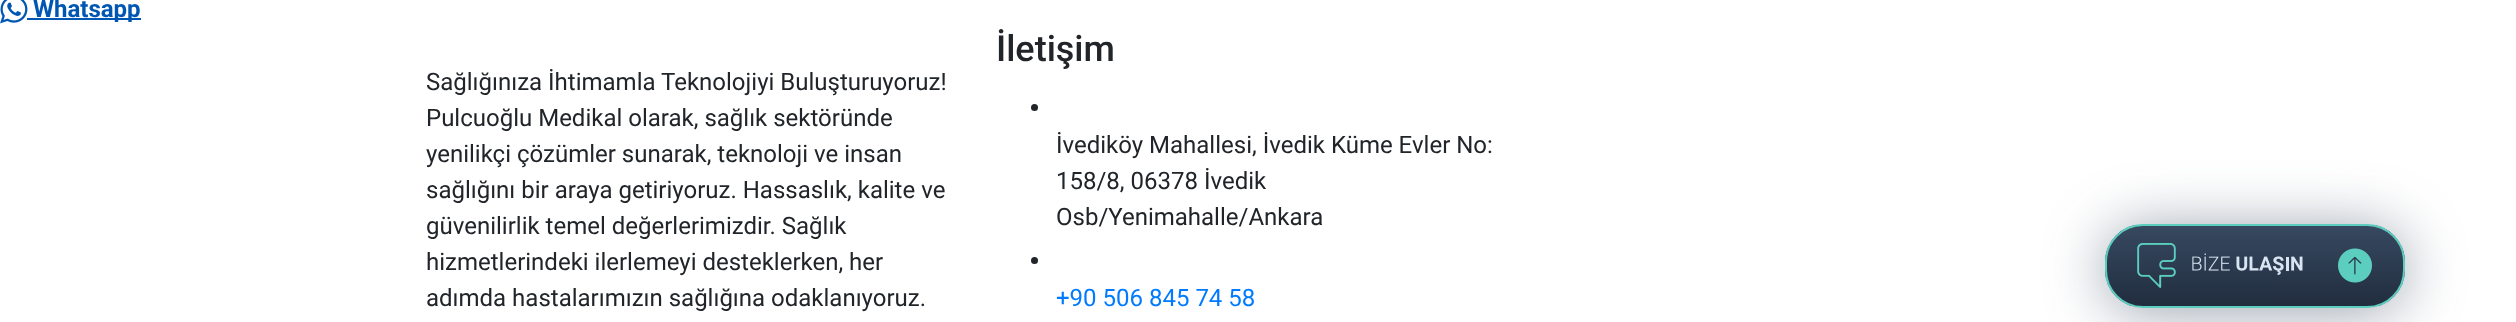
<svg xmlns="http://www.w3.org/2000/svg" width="2516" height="322">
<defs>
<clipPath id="clip1"><rect x="2105" y="224" width="300" height="84" rx="38"/></clipPath>
<linearGradient id="g1" gradientUnits="userSpaceOnUse" x1="2255" y1="225" x2="2255" y2="306"><stop offset="0" stop-color="#374960"/><stop offset="1" stop-color="#212d3f"/></linearGradient>
</defs>
<rect width="100%" height="100%" fill="#fff"/>
<image x="0" y="0" width="28" height="24" href="media/1.png"/>
<rect x="27" y="18" width="114" height="2" fill="#0056b3"/>
<text x="33" y="17" style="font-family:Roboto;font-size:24px;font-weight:bold;fill:#0056b3">Whatsapp</text>
<text x="426" y="90" style="font-family:Roboto;font-size:24px;fill:#212529">Sağlığınıza İhtimamla Teknolojiyi Buluşturuyoruz!</text>
<text x="426" y="126" style="font-family:Roboto;font-size:24px;fill:#212529">Pulcuoğlu Medikal olarak, sağlık sektöründe</text>
<text x="426" y="162" style="font-family:Roboto;font-size:24px;fill:#212529">yenilikçi çözümler sunarak, teknoloji ve insan</text>
<text x="426" y="198" style="font-family:Roboto;font-size:24px;fill:#212529">sağlığını bir araya getiriyoruz. Hassaslık, kalite ve</text>
<text x="426" y="234" style="font-family:Roboto;font-size:24px;fill:#212529">güvenilirlik temel değerlerimizdir. Sağlık</text>
<text x="426" y="270" style="font-family:Roboto;font-size:24px;fill:#212529">hizmetlerindeki ilerlemeyi desteklerken, her</text>
<text x="426" y="306" style="font-family:Roboto;font-size:24px;fill:#212529">adımda hastalarımızın sağlığına odaklanıyoruz.</text>
<text x="996" y="61" style="font-family:Roboto;font-size:36px;font-weight:500;fill:#212529">İletişim</text>
<circle cx="1034.5" cy="107.5" r="3.5" fill="#212529"/>
<text x="1056" y="153" style="font-family:Roboto;font-size:24px;fill:#212529">İvediköy Mahallesi, İvedik Küme Evler No:</text>
<text x="1056" y="189" style="font-family:Roboto;font-size:24px;fill:#212529">158/8, 06378 İvedik</text>
<text x="1056" y="225" style="font-family:Roboto;font-size:24px;fill:#212529">Osb/Yenimahalle/Ankara</text>
<circle cx="1034.5" cy="260.5" r="3.5" fill="#212529"/>
<text x="1056" y="306" style="font-family:Roboto;font-size:24px;fill:#007bff">+90 506 845 74 58</text>
<rect x="2105" y="228" width="300" height="84" rx="38" fill="#36485f80" filter="blur(30px)"/>
<g clip-path="url(#clip1)">
<rect x="2105" y="225" width="300" height="81" fill="url(#g1)"/>
</g>
<rect x="2106" y="225" width="298" height="82" rx="37" fill="none" stroke="#5ccebf" stroke-width="2"/>
<image x="2137" y="243" width="235" height="45" href="media/2.png"/>
</svg>
